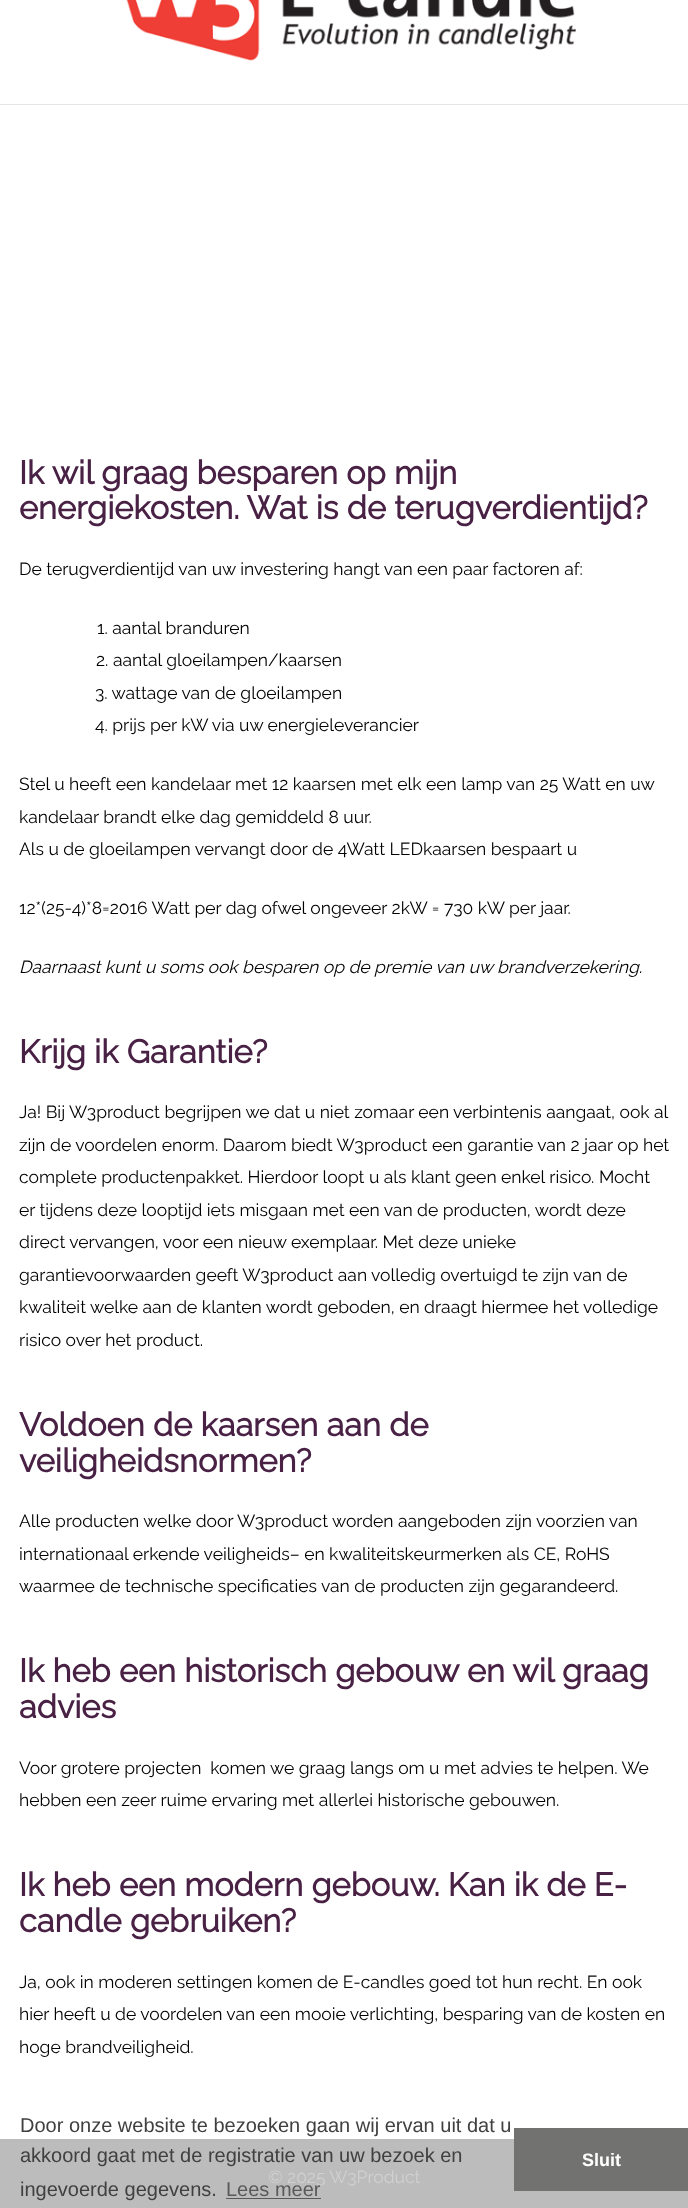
<svg xmlns="http://www.w3.org/2000/svg" width="688" height="2208">
<rect width="100%" height="100%" fill="#fff"/>
<rect y="104" width="688" height="1" fill="#e5e5e5"/>
<image x="126" y="0" width="450" height="61" href="media/1.png"/>
<text x="19" y="484" style="font-family:Raleway;font-size:32.5px;font-weight:bold;fill:#492144">Ik wil graag besparen op mijn</text>
<text x="19" y="519" style="font-family:Raleway;font-size:32.5px;font-weight:bold;fill:#492144">energiekosten. Wat is de terugverdientijd?</text>
<text x="19" y="575" style="font-family:Raleway;font-size:17.5px;font-weight:100;fill:#000">De terugverdientijd van uw investering hangt van een paar factoren af:</text>
<text x="97" y="634" style="font-family:Raleway;font-size:17.5px;font-weight:100;fill:#000">1. aantal branduren</text>
<text x="96" y="666" style="font-family:Raleway;font-size:17.5px;font-weight:100;fill:#000">2. aantal gloeilampen/kaarsen</text>
<text x="95" y="699" style="font-family:Raleway;font-size:17.5px;font-weight:100;fill:#000">3. wattage van de gloeilampen</text>
<text x="95" y="731" style="font-family:Raleway;font-size:17.5px;font-weight:100;fill:#000">4. prijs per kW via uw energieleverancier</text>
<text x="19" y="790" style="font-family:Raleway;font-size:17.5px;font-weight:100;fill:#000">Stel u heeft een kandelaar met 12 kaarsen met elk een lamp van 25 Watt en uw</text>
<text x="19" y="823" style="font-family:Raleway;font-size:17.5px;font-weight:100;fill:#000">kandelaar brandt elke dag gemiddeld 8 uur.</text>
<text x="19" y="855" style="font-family:Raleway;font-size:17.5px;font-weight:100;fill:#000">Als u de gloeilampen vervangt door de 4Watt LEDkaarsen bespaart u</text>
<text x="19" y="914" style="font-family:Raleway;font-size:17.5px;font-weight:100;fill:#000">12*(25-4)*8=2016 Watt per dag ofwel ongeveer 2kW = 730 kW per jaar.</text>
<text x="19" y="973" style="font-family:Raleway;font-size:17.5px;font-weight:100;font-style:italic;fill:#000">Daarnaast kunt u soms ook besparen op de premie van uw brandverzekering.</text>
<text x="19" y="1063" style="font-family:Raleway;font-size:32.5px;font-weight:bold;fill:#492144">Krijg ik Garantie?</text>
<text x="19" y="1118" style="font-family:Raleway;font-size:17.5px;font-weight:100;fill:#000">Ja! Bij W3product begrijpen we dat u niet zomaar een verbintenis aangaat, ook al</text>
<text x="19" y="1151" style="font-family:Raleway;font-size:17.5px;font-weight:100;fill:#000">zijn de voordelen enorm. Daarom biedt W3product een garantie van 2 jaar op het</text>
<text x="19" y="1183" style="font-family:Raleway;font-size:17.5px;font-weight:100;fill:#000">complete productenpakket. Hierdoor loopt u als klant geen enkel risico. Mocht</text>
<text x="19" y="1216" style="font-family:Raleway;font-size:17.5px;font-weight:100;fill:#000">er tijdens deze looptijd iets misgaan met een van de producten, wordt deze</text>
<text x="19" y="1248" style="font-family:Raleway;font-size:17.5px;font-weight:100;fill:#000">direct vervangen, voor een nieuw exemplaar. Met deze unieke</text>
<text x="19" y="1281" style="font-family:Raleway;font-size:17.5px;font-weight:100;fill:#000">garantievoorwaarden geeft W3product aan volledig overtuigd te zijn van de</text>
<text x="19" y="1313" style="font-family:Raleway;font-size:17.5px;font-weight:100;fill:#000">kwaliteit welke aan de klanten wordt geboden, en draagt hiermee het volledige</text>
<text x="19" y="1346" style="font-family:Raleway;font-size:17.5px;font-weight:100;fill:#000">risico over het product.</text>
<text x="19" y="1436" style="font-family:Raleway;font-size:32.5px;font-weight:bold;fill:#492144">Voldoen de kaarsen aan de</text>
<text x="19" y="1472" style="font-family:Raleway;font-size:32.5px;font-weight:bold;fill:#492144">veiligheidsnormen?</text>
<text x="19" y="1527" style="font-family:Raleway;font-size:17.5px;font-weight:100;fill:#000">Alle producten welke door W3product worden aangeboden zijn voorzien van</text>
<text x="19" y="1560" style="font-family:Raleway;font-size:17.5px;font-weight:100;fill:#000">internationaal erkende veiligheids– en kwaliteitskeurmerken als CE, RoHS</text>
<text x="19" y="1592" style="font-family:Raleway;font-size:17.5px;font-weight:100;fill:#000">waarmee de technische specificaties van de producten zijn gegarandeerd.</text>
<text x="19" y="1682" style="font-family:Raleway;font-size:32.5px;font-weight:bold;fill:#492144">Ik heb een historisch gebouw en wil graag</text>
<text x="19" y="1718" style="font-family:Raleway;font-size:32.5px;font-weight:bold;fill:#492144">advies</text>
<text x="19" y="1774" style="font-family:Raleway;font-size:17.5px;font-weight:100;fill:#000" xml:space="preserve">Voor grotere projecten  komen we graag langs om u met advies te helpen. We</text>
<text x="19" y="1806" style="font-family:Raleway;font-size:17.5px;font-weight:100;fill:#000">hebben een zeer ruime ervaring met allerlei historische gebouwen.</text>
<text x="19" y="1896" style="font-family:Raleway;font-size:32.5px;font-weight:bold;fill:#492144">Ik heb een modern gebouw. Kan ik de E-</text>
<text x="19" y="1932" style="font-family:Raleway;font-size:32.5px;font-weight:bold;fill:#492144">candle gebruiken?</text>
<text x="19" y="1988" style="font-family:Raleway;font-size:17.5px;font-weight:100;fill:#000">Ja, ook in moderen settingen komen de E-candles goed tot hun recht. En ook</text>
<text x="19" y="2020" style="font-family:Raleway;font-size:17.5px;font-weight:100;fill:#000">hier heeft u de voordelen van een mooie verlichting, besparing van de kosten en</text>
<text x="19" y="2053" style="font-family:Raleway;font-size:17.5px;font-weight:100;fill:#000">hoge brandveiligheid.</text>
<rect y="2139" width="688" height="69" fill="#bcbcbc"/>
<text x="268" y="2183" style="font-family:Raleway;font-size:17.5px;font-weight:100;fill:#d1d1d1">© 2025 W3Product</text>
<text x="20" y="2132" style="font-family:Liberation Sans;font-size:20px;fill:#404040">Door onze website te bezoeken gaan wij ervan uit dat u</text>
<text x="20" y="2162" style="font-family:Liberation Sans;font-size:20px;fill:#404040">akkoord gaat met de registratie van uw bezoek en</text>
<text x="20" y="2196" style="font-family:Liberation Sans;font-size:20px;fill:#404040">ingevoerde gegevens.</text>
<text x="226" y="2196" style="font-family:Liberation Sans;font-size:20px;fill:#595959">Lees meer</text>
<rect x="226" y="2198" width="95" height="1" fill="#595959"/>
<rect x="514" y="2128" width="174" height="63" fill="#727271"/>
<text x="582" y="2166" style="font-family:Liberation Sans;font-size:18px;font-weight:bold;fill:#fff">Sluit</text>
</svg>
